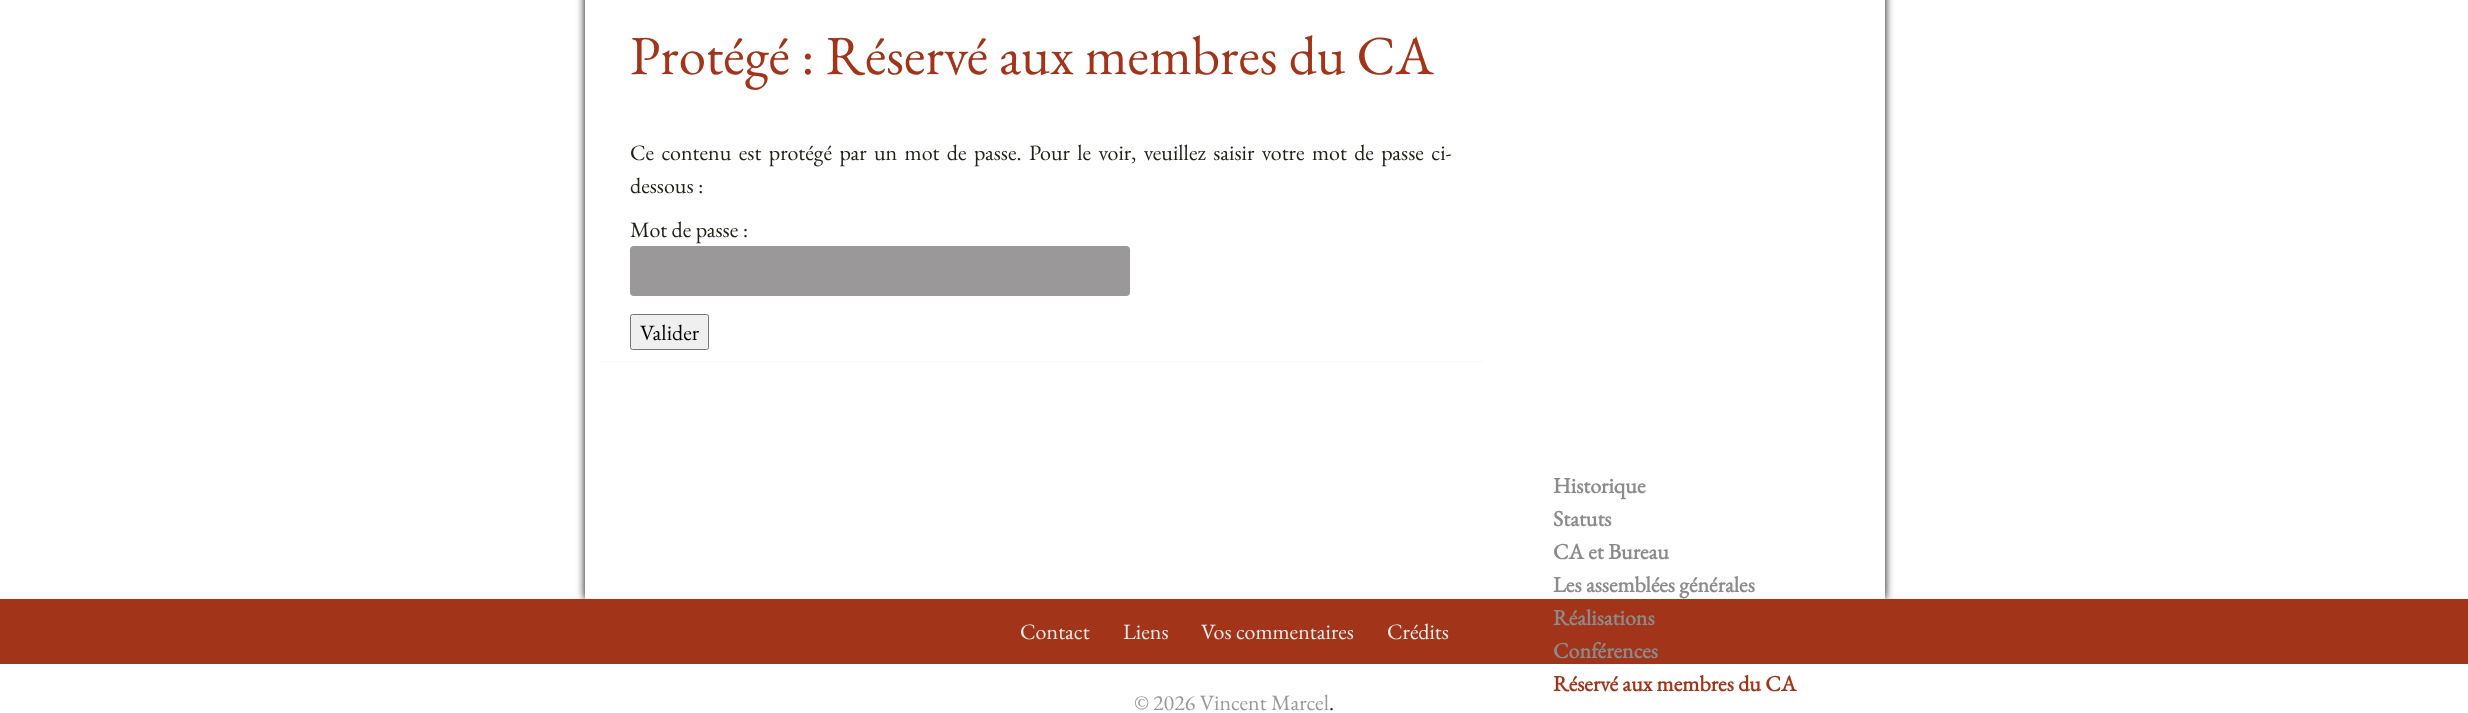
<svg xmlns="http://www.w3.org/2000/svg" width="2468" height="713">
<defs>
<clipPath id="clip1"><path d="M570 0h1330v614h-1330zm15-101h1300v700h-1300z" clip-rule="evenodd"/></clipPath>
</defs>
<rect width="100%" height="100%" fill="#fff"/>
<g clip-path="url(#clip1)">
<rect x="585" y="-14" width="1300" height="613" fill="#000" filter="blur(4.5px)"/>
</g>
<text x="630" y="74" style="font-family:EB Garamond;font-size:55px;fill:#a23419">Protégé : Réservé aux membres du CA</text>
<text x="630" y="160" word-spacing="3" style="font-family:EB Garamond;font-size:22px;fill:#222118">Ce contenu est protégé par un mot de passe. Pour le voir, veuillez saisir votre mot de passe ci-</text>
<text x="630" y="193" style="font-family:EB Garamond;font-size:22px;fill:#222118">dessous :</text>
<text x="630" y="237" style="font-family:EB Garamond;font-size:22px;fill:#222118">Mot de passe :</text>
<rect x="630" y="246" width="500" height="50" rx="4" fill="#9a9898"/>
<rect x="630.5" y="314.5" width="78" height="35" rx="2" fill="#efefef" stroke="#767676"/>
<text x="640" y="340" style="font-family:EB Garamond;font-size:22px;fill:#000">Valider</text>
<rect x="598" y="361" width="886" height="1" fill="#f8f9fa"/>
<text x="1553" y="493" style="font-family:EB Garamond;font-size:22px;font-weight:bold;fill:#8c8a8a">Historique</text>
<text x="1553" y="526" style="font-family:EB Garamond;font-size:22px;font-weight:bold;fill:#8c8a8a">Statuts</text>
<text x="1553" y="559" style="font-family:EB Garamond;font-size:22px;font-weight:bold;fill:#8c8a8a">CA et Bureau</text>
<text x="1553" y="592" style="font-family:EB Garamond;font-size:22px;font-weight:bold;fill:#8c8a8a">Les assemblées générales</text>
<rect y="599" width="2468" height="65" fill="#a23419"/>
<text x="1553" y="625" style="font-family:EB Garamond;font-size:22px;font-weight:bold;fill:#8c8a8a">Réalisations</text>
<text x="1553" y="658" style="font-family:EB Garamond;font-size:22px;font-weight:bold;fill:#8c8a8a">Conférences</text>
<text x="1553" y="691" style="font-family:EB Garamond;font-size:22px;font-weight:bold;fill:#a23419">Réservé aux membres du CA</text>
<text x="1020" y="639" style="font-family:EB Garamond;font-size:22px;fill:#f0eded">Contact</text>
<text x="1123" y="639" style="font-family:EB Garamond;font-size:22px;fill:#f0eded">Liens</text>
<text x="1201" y="639" style="font-family:EB Garamond;font-size:22px;fill:#f0eded">Vos commentaires</text>
<text x="1387" y="639" style="font-family:EB Garamond;font-size:22px;fill:#f0eded">Crédits</text>
<text x="1134" y="710" style="font-family:EB Garamond;font-size:22px;fill:#9a9898">© 2026 Vincent Marcel</text>
<text x="1329" y="710" style="font-family:EB Garamond;font-size:22px;fill:#222118">.</text>
</svg>
